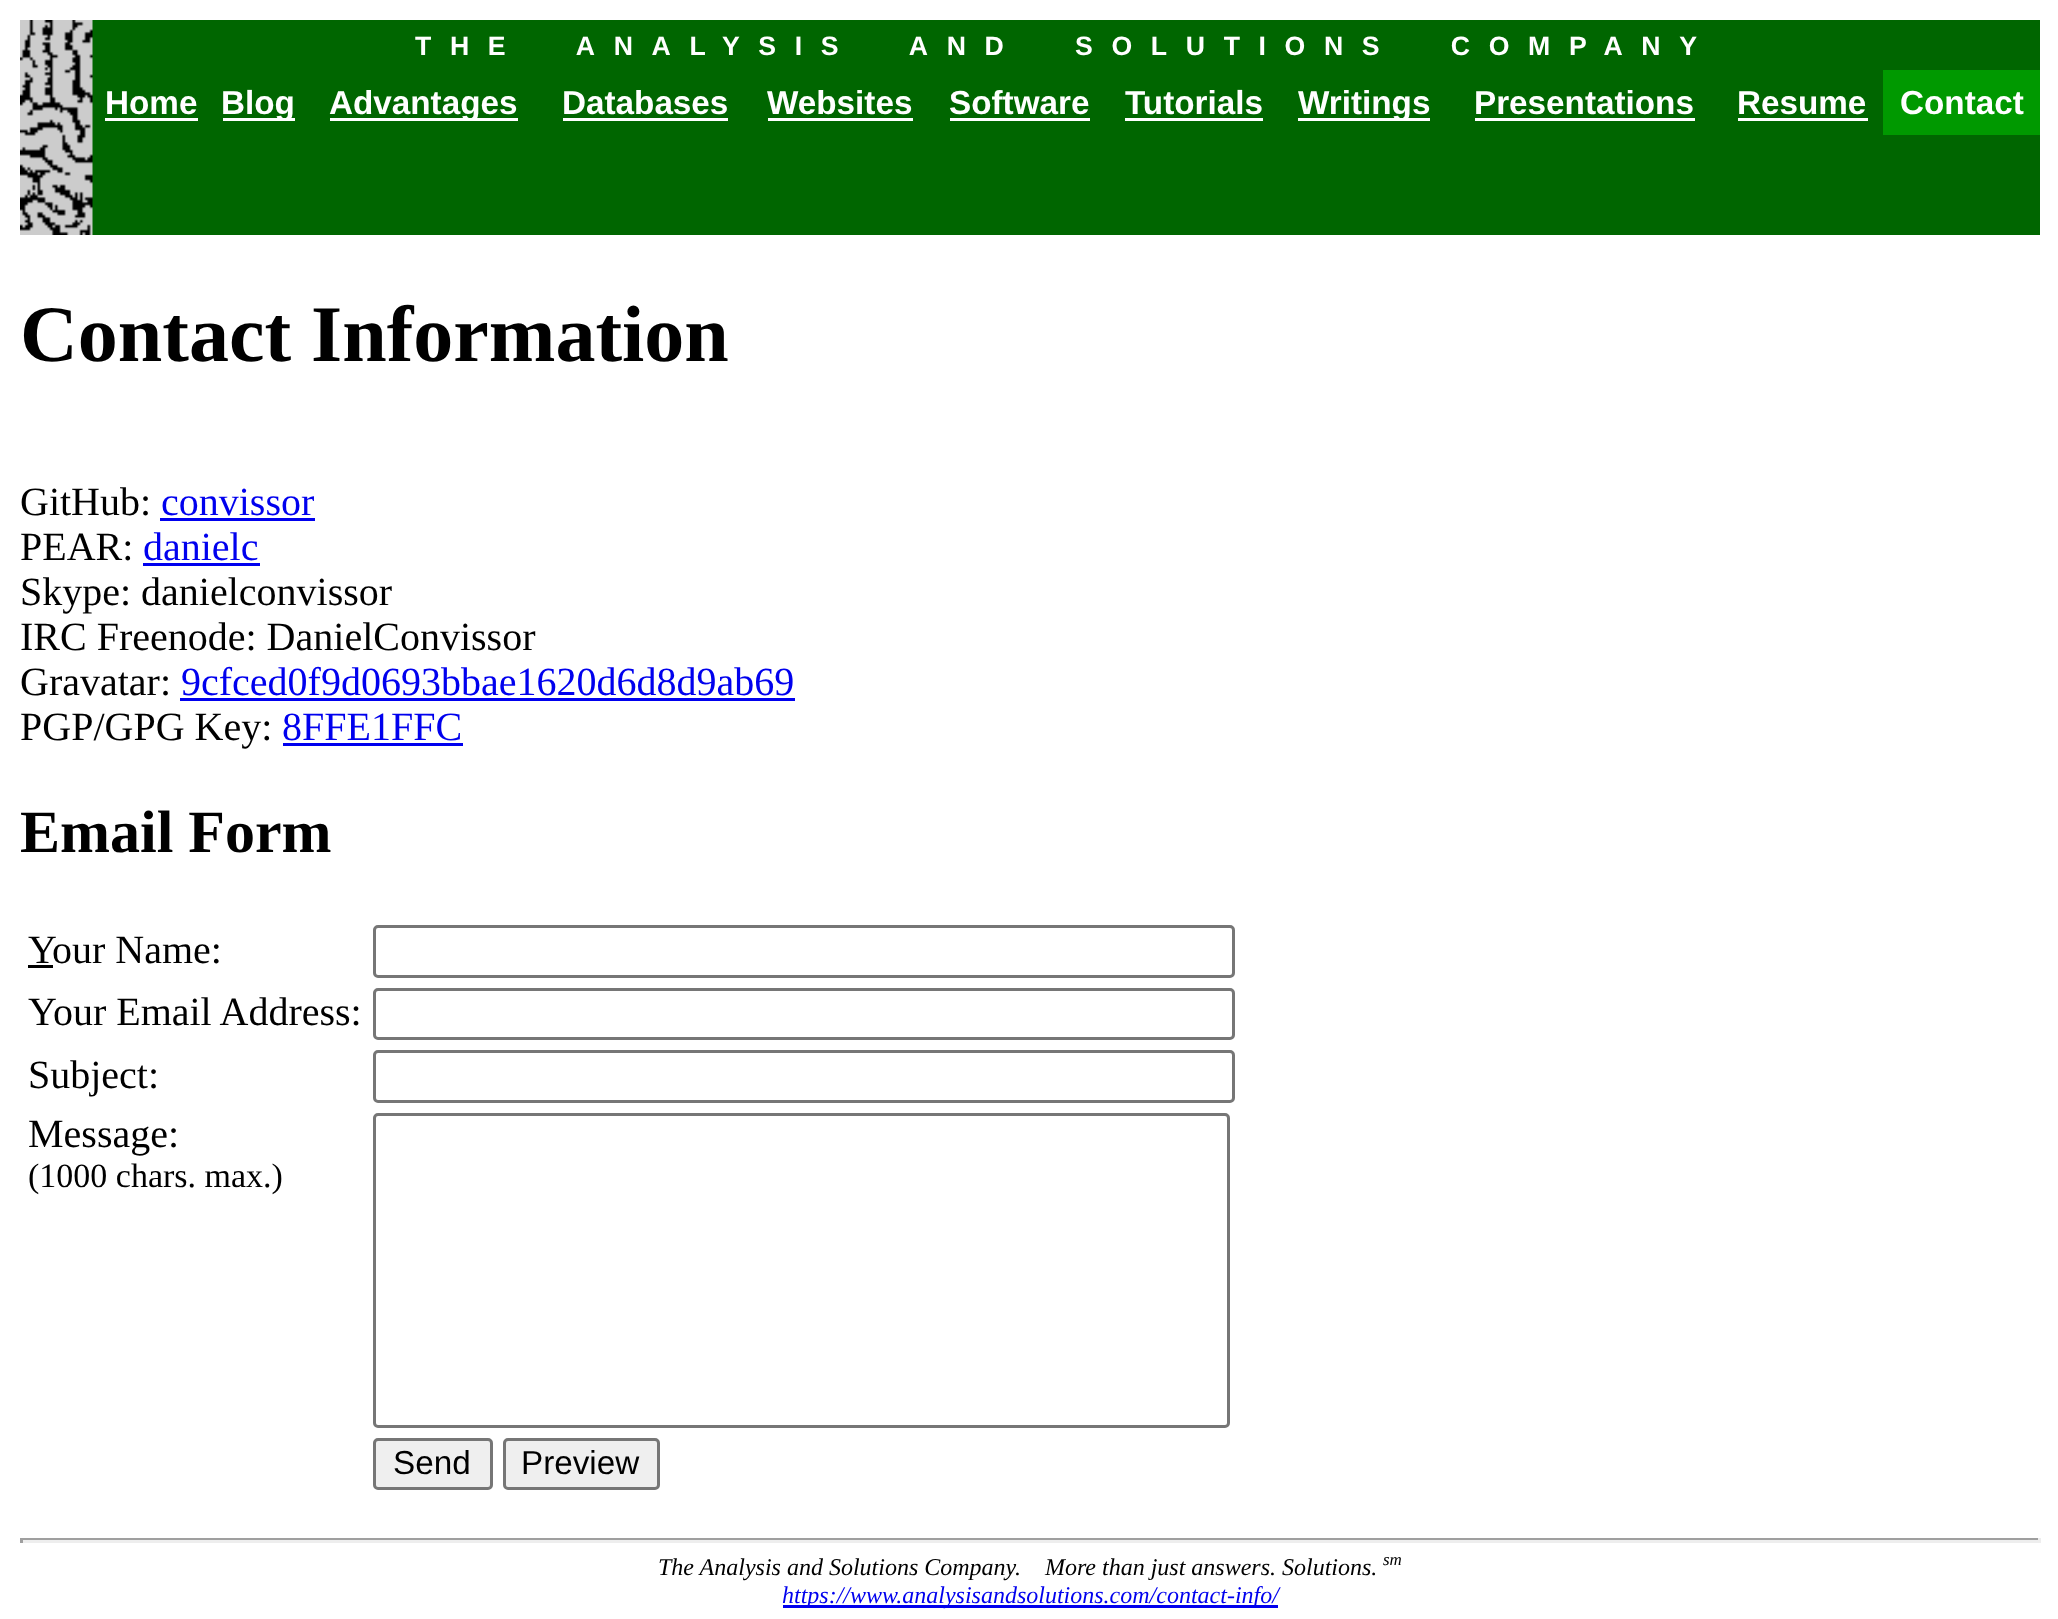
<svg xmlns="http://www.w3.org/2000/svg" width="2058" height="1619">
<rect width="100%" height="100%" fill="#fff"/>
<rect x="92" y="20" width="1948" height="215" fill="#060"/>
<image x="20" y="20" width="73" height="215" href="media/1.png"/>
<text x="415" y="55" word-spacing="26.5" style="font-family:Liberation Sans;font-size:26.65px;font-weight:bold;letter-spacing:18.65px;fill:#fff">THE ANALYSIS AND SOLUTIONS COMPANY</text>
<text x="105" y="114" style="font-family:Liberation Sans;font-size:33.25px;font-weight:bold;fill:#fff">Home</text>
<rect x="105" y="118" width="93" height="3" fill="#fff"/>
<rect x="223" y="118" width="72" height="3" fill="#fff"/>
<text x="221" y="114" style="font-family:Liberation Sans;font-size:33.25px;font-weight:bold;fill:#fff">Blog</text>
<rect x="330" y="118" width="188" height="3" fill="#fff"/>
<text x="329" y="114" style="font-family:Liberation Sans;font-size:33.25px;font-weight:bold;fill:#fff">Advantages</text>
<text x="562" y="114" style="font-family:Liberation Sans;font-size:33.25px;font-weight:bold;fill:#fff">Databases</text>
<rect x="563" y="118" width="165" height="3" fill="#fff"/>
<text x="767" y="114" style="font-family:Liberation Sans;font-size:33.25px;font-weight:bold;fill:#fff">Websites</text>
<rect x="768" y="118" width="145" height="3" fill="#fff"/>
<text x="949" y="114" style="font-family:Liberation Sans;font-size:33.25px;font-weight:bold;fill:#fff">Software</text>
<rect x="950" y="118" width="140" height="3" fill="#fff"/>
<text x="1125" y="114" style="font-family:Liberation Sans;font-size:33.25px;font-weight:bold;fill:#fff">Tutorials</text>
<rect x="1125" y="118" width="138" height="3" fill="#fff"/>
<rect x="1298" y="118" width="132" height="3" fill="#fff"/>
<text x="1298" y="114" style="font-family:Liberation Sans;font-size:33.25px;font-weight:bold;fill:#fff">Writings</text>
<text x="1474" y="114" style="font-family:Liberation Sans;font-size:33.25px;font-weight:bold;fill:#fff">Presentations</text>
<rect x="1475" y="118" width="220" height="3" fill="#fff"/>
<text x="1737" y="114" style="font-family:Liberation Sans;font-size:33.25px;font-weight:bold;fill:#fff">Resume</text>
<rect x="1738" y="118" width="130" height="3" fill="#fff"/>
<rect x="1883" y="70" width="157" height="65" fill="#090"/>
<text x="1900" y="114" style="font-family:Liberation Sans;font-size:33.25px;font-weight:bold;fill:#fff">Contact</text>
<text x="20" y="361" style="font-family:Liberation Serif;font-size:80px;font-weight:bold;fill:#000">Contact Information</text>
<text x="20" y="515" style="font-family:Liberation Serif;font-size:40px;fill:#000">GitHub:</text>
<text x="161" y="515" style="font-family:Liberation Serif;font-size:40px;fill:#00e">convissor</text>
<rect x="160" y="518" width="155" height="3" fill="#00e"/>
<text x="20" y="560" style="font-family:Liberation Serif;font-size:40px;fill:#000">PEAR:</text>
<text x="143" y="560" style="font-family:Liberation Serif;font-size:40px;fill:#00e">danielc</text>
<rect x="143" y="563" width="117" height="3" fill="#00e"/>
<text x="20" y="605" style="font-family:Liberation Serif;font-size:40px;fill:#000">Skype: danielconvissor</text>
<text x="20" y="650" style="font-family:Liberation Serif;font-size:40px;fill:#000">IRC Freenode: DanielConvissor</text>
<text x="20" y="695" style="font-family:Liberation Serif;font-size:40px;fill:#000">Gravatar:</text>
<text x="181" y="695" style="font-family:Liberation Serif;font-size:40px;fill:#00e">9cfced0f9d0693bbae1620d6d8d9ab69</text>
<rect x="180" y="698" width="615" height="3" fill="#00e"/>
<text x="20" y="740" style="font-family:Liberation Serif;font-size:40px;fill:#000">PGP/GPG Key:</text>
<text x="282" y="740" style="font-family:Liberation Serif;font-size:40px;fill:#00e">8FFE1FFC</text>
<rect x="283" y="743" width="180" height="3" fill="#00e"/>
<text x="20" y="852" style="font-family:Liberation Serif;font-size:60px;font-weight:bold;fill:#000">Email Form</text>
<text x="28" y="963" style="font-family:Liberation Serif;font-size:40px;fill:#000">Y</text>
<rect x="28" y="965" width="25" height="3" fill="#000"/>
<text x="52" y="963" style="font-family:Liberation Serif;font-size:40px;fill:#000">our Name:</text>
<rect x="374.5" y="926.5" width="859" height="50" rx="3.5" fill="none" stroke="#767676" stroke-width="3"/>
<text x="28" y="1025" style="font-family:Liberation Serif;font-size:40px;fill:#000">Your Email Address:</text>
<rect x="374.5" y="989.5" width="859" height="49" rx="3.5" fill="none" stroke="#767676" stroke-width="3"/>
<text x="28" y="1088" style="font-family:Liberation Serif;font-size:40px;fill:#000">Subject:</text>
<rect x="374.5" y="1051.5" width="859" height="50" rx="3.5" fill="none" stroke="#767676" stroke-width="3"/>
<text x="28" y="1147" style="font-family:Liberation Serif;font-size:40px;fill:#000">Message:</text>
<text x="28" y="1187" style="font-family:Liberation Serif;font-size:34px;fill:#000">(1000 chars. max.)</text>
<rect x="374.5" y="1114.5" width="854" height="312" rx="3.5" fill="none" stroke="#767676" stroke-width="3"/>
<rect x="374.5" y="1439.5" width="117" height="49" rx="3.5" fill="#efefef" stroke="#767676" stroke-width="3"/>
<text x="393" y="1474" style="font-family:Liberation Sans;font-size:33.25px;fill:#000">Send</text>
<rect x="504.5" y="1439.5" width="154" height="49" rx="3.5" fill="#efefef" stroke="#767676" stroke-width="3"/>
<text x="521" y="1474" style="font-family:Liberation Sans;font-size:33.25px;fill:#000">Preview</text>
<rect x="20" y="1538" width="2020" height="2" fill="#9f9f9f"/>
<rect x="2038" y="1538" width="3" height="5" fill="#eee"/>
<rect x="20" y="1540" width="2020" height="3" fill="#eee"/>
<rect x="20" y="1538" width="3" height="5" fill="#9f9f9f"/>
<text x="658" y="1575" style="font-family:Liberation Serif;font-size:24px;font-style:italic;fill:#000" xml:space="preserve">The Analysis and Solutions Company.    More than just answers. Solutions.</text>
<text x="1383" y="1565" style="font-family:Liberation Serif;font-size:17px;font-style:italic;fill:#000">sm</text>
<rect x="783" y="1605" width="495" height="3" fill="#00e"/>
<text x="782" y="1603" style="font-family:Liberation Serif;font-size:24px;font-style:italic;fill:#00e">https://www.analysisandsolutions.com/contact-info/</text>
</svg>
